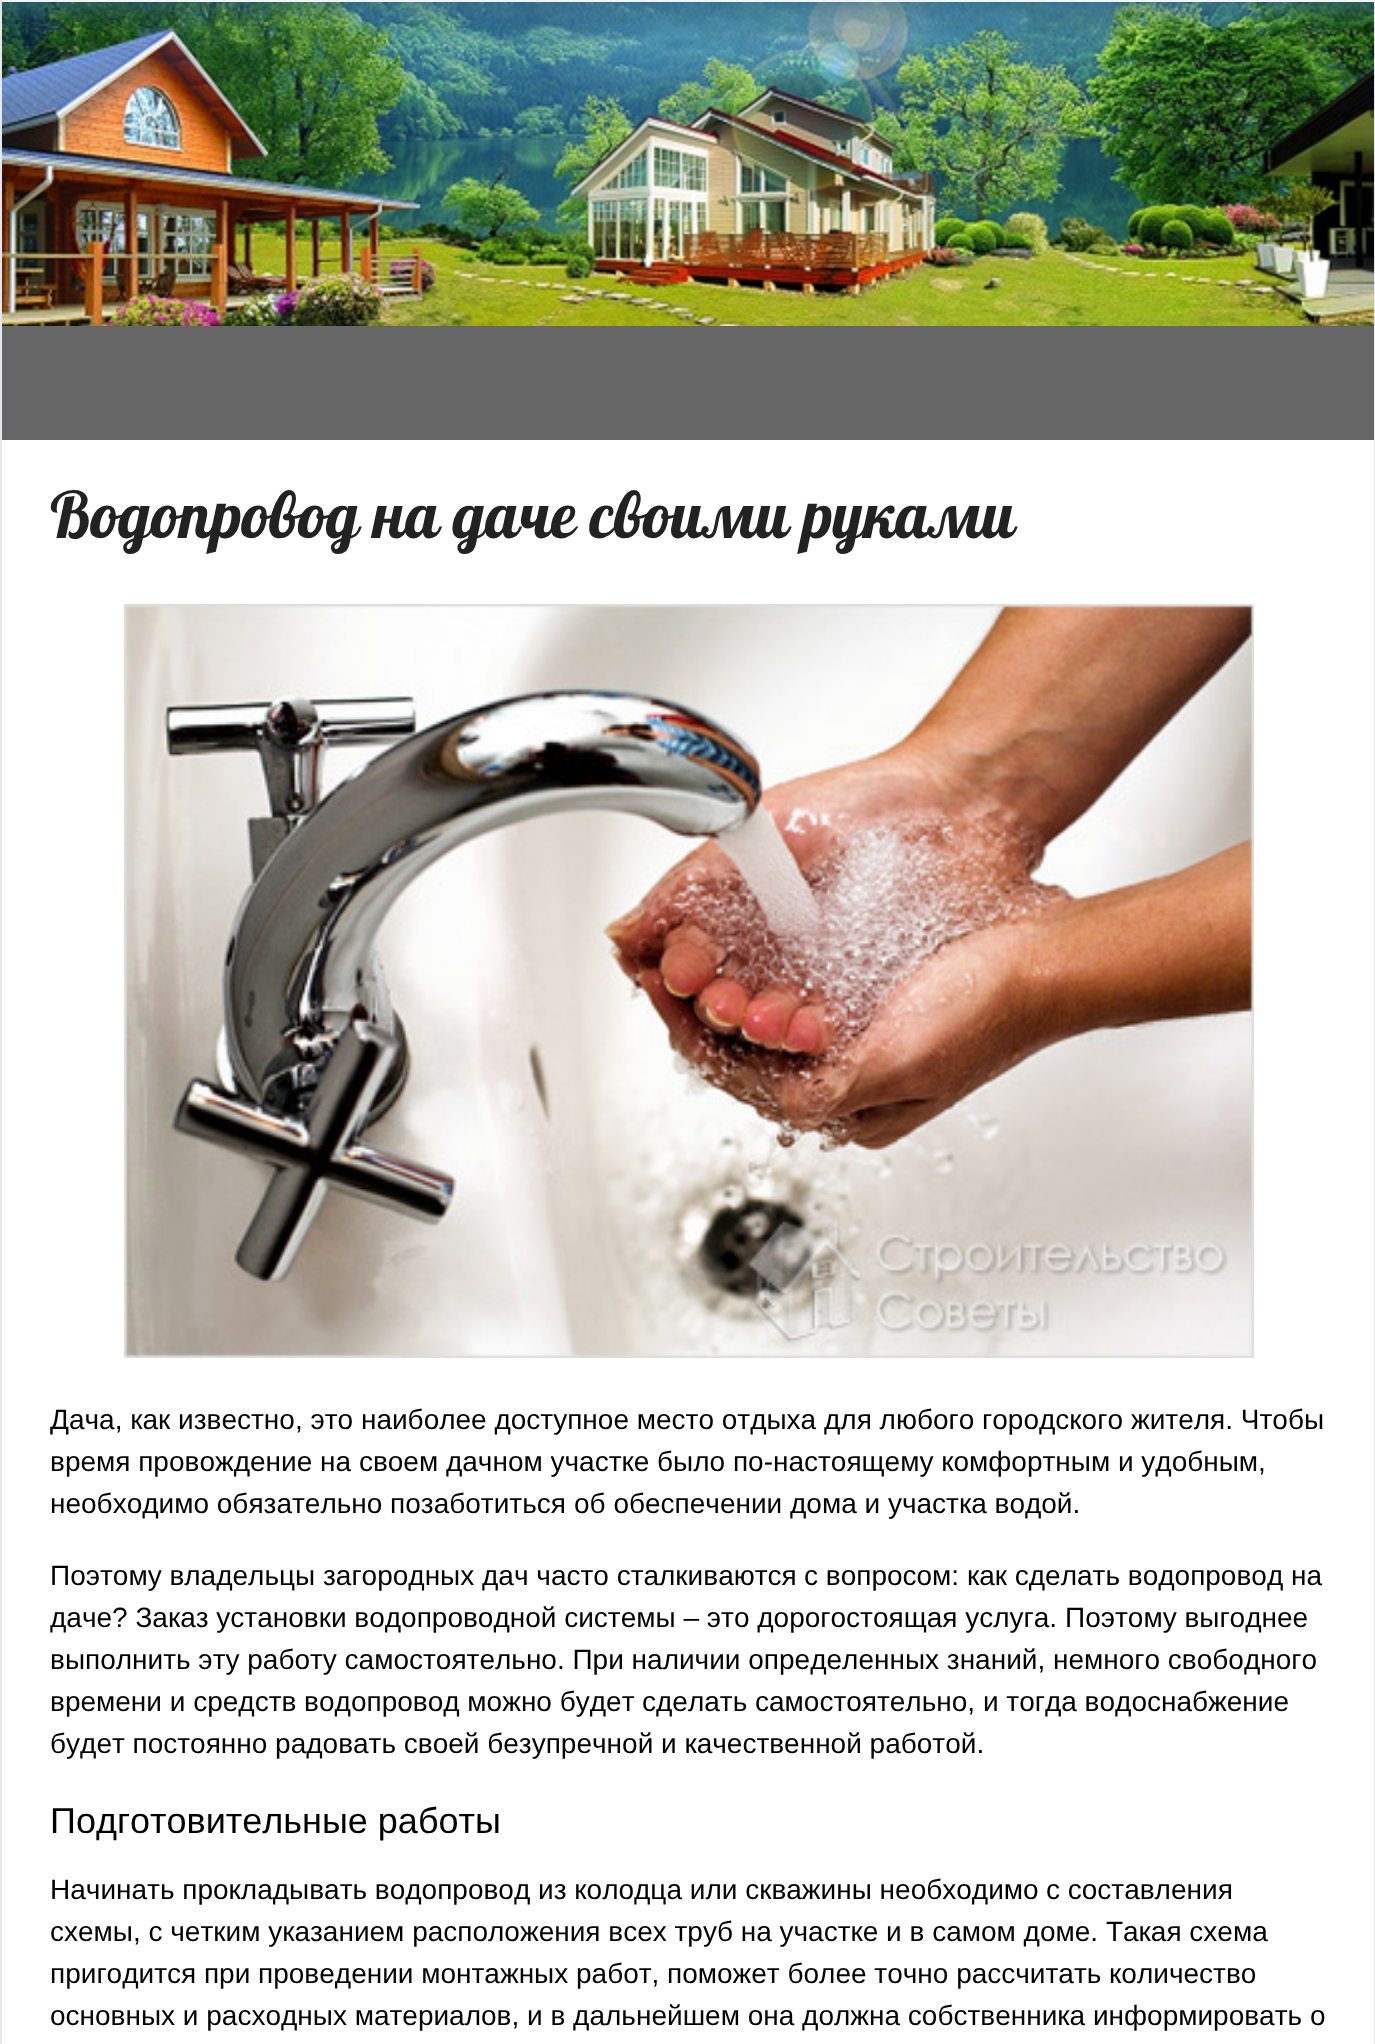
<svg xmlns="http://www.w3.org/2000/svg" width="1375" height="2044">
<style>*{font-kerning:none!important;font-variant-ligatures:none!important}</style>
<rect width="100%" height="100%" fill="#fff"/>
<rect width="1375" height="2" fill="#f2f3f5"/>
<rect x="1374" width="1" height="2044" fill="#e4e7ec"/>
<rect width="2" height="2044" fill="#e4e7ec"/>
<image x="2" y="2" width="1372" height="324" href="media/1.png"/>
<rect x="2" y="326" width="1372" height="114" fill="#666"/>
<text x="50" y="538" style="font-family:Lobster;font-size:64px;fill:#222">Водопровод на даче своими</text>
<text x="803" y="538" style="font-family:Lobster;font-size:64px;fill:#222">руками</text>
<image x="124" y="604" width="1130" height="754" href="media/2.png"/>
<text x="50" y="1429" style="font-family:Liberation Sans;font-size:28px;fill:#000">Дача, как известно, это наиболее доступное место отдыха для любого городского</text>
<text x="1131" y="1429" style="font-family:Liberation Sans;font-size:28px;fill:#000">жителя. Чтобы</text>
<text x="50" y="1471" style="font-family:Liberation Sans;font-size:28px;fill:#000">время провождение на своем дачном участке было по-настоящему комфортным и удобным,</text>
<text x="50" y="1513" style="font-family:Liberation Sans;font-size:28px;fill:#000">необходимо обязательно позаботиться</text>
<text x="574" y="1513" style="font-family:Liberation Sans;font-size:28px;fill:#000">об обеспечении дома и участка водой.</text>
<text x="50" y="1585" style="font-family:Liberation Sans;font-size:28px;fill:#000">Поэтому владельцы загородных дач часто сталкиваются</text>
<text x="804" y="1585" style="font-family:Liberation Sans;font-size:28px;fill:#000">с вопросом: как сделать водопровод на</text>
<text x="50" y="1627" style="font-family:Liberation Sans;font-size:28px;fill:#000">даче? Заказ установки водопроводной системы – это дорогостоящая услуга.</text>
<text x="1065" y="1627" style="font-family:Liberation Sans;font-size:28px;fill:#000">Поэтому выгоднее</text>
<text x="50" y="1669" style="font-family:Liberation Sans;font-size:28px;fill:#000">выполнить эту работу самостоятельно. При наличии определенных знаний, немного свободного</text>
<text x="50" y="1711" style="font-family:Liberation Sans;font-size:28px;fill:#000">времени и средств водопровод можно будет</text>
<text x="642" y="1711" style="font-family:Liberation Sans;font-size:28px;fill:#000">сделать самостоятельно, и тогда водоснабжение</text>
<text x="50" y="1753" style="font-family:Liberation Sans;font-size:28px;fill:#000">будет постоянно радовать своей безупречной</text>
<text x="661" y="1753" style="font-family:Liberation Sans;font-size:28px;fill:#000">и качественной работой.</text>
<text x="50" y="1833" style="font-family:Liberation Sans;font-size:36px;fill:#000">Подготовительные работы</text>
<text x="50" y="1899" style="font-family:Liberation Sans;font-size:28px;fill:#000">Начинать прокладывать водопровод из колодца или скважины необходимо</text>
<text x="1046" y="1899" style="font-family:Liberation Sans;font-size:28px;fill:#000">с составления</text>
<text x="50" y="1941" style="font-family:Liberation Sans;font-size:28px;fill:#000">схемы, с четким указанием расположения всех труб на участке и в самом доме. Такая схема</text>
<text x="50" y="1983" style="font-family:Liberation Sans;font-size:28px;fill:#000">пригодится при проведении монтажных работ,</text>
<text x="667" y="1983" style="font-family:Liberation Sans;font-size:28px;fill:#000">поможет более точно рассчитать количество</text>
<text x="50" y="2025" style="font-family:Liberation Sans;font-size:28px;fill:#000">основных и расходных материалов, и в дальнейшем она должна собственника информировать о</text>
</svg>
